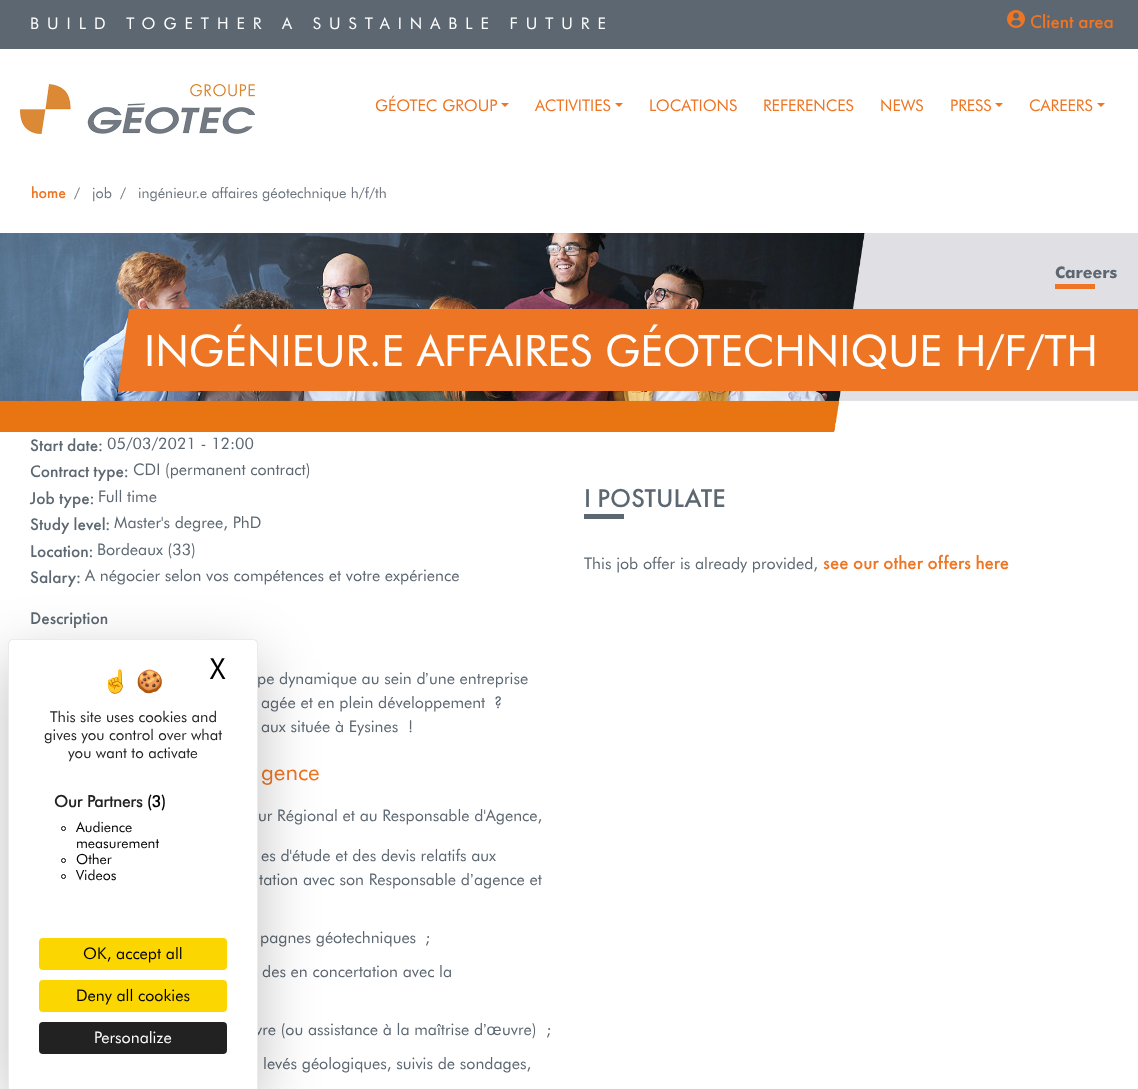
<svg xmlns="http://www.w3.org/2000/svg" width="1138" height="1089">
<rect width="100%" height="100%" fill="#fff"/>
<rect width="1138" height="49" fill="#5c6771"/>
<text x="30" y="29" style="font-family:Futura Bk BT;font-size:16px;letter-spacing:8px;fill:#fff">BUILD TOGETHER A SUSTAINABLE FUTURE</text>
<image x="1007" y="10" width="18" height="18" href="media/1.png"/>
<text x="1030" y="28" style="font-family:Futura PT;font-size:19.25px;font-weight:500;fill:#ee7523">Client area</text>
<image x="20" y="84" width="235" height="50" href="media/2.png"/>
<text x="375" y="111" style="font-family:Futura Bk BT;font-size:16px;fill:#ee7523">GÉOTEC GROUP</text>
<path d="M501 103h8l-4 4z" fill="#ee7523"/>
<text x="535" y="111" style="font-family:Futura Bk BT;font-size:16px;fill:#ee7523">ACTIVITIES</text>
<path d="M615 103h8l-4 4z" fill="#ee7523"/>
<text x="649" y="111" style="font-family:Futura Bk BT;font-size:16px;fill:#ee7523">LOCATIONS</text>
<text x="763" y="111" style="font-family:Futura Bk BT;font-size:16px;fill:#ee7523">REFERENCES</text>
<text x="880" y="111" style="font-family:Futura Bk BT;font-size:16px;fill:#ee7523">NEWS</text>
<text x="950" y="111" style="font-family:Futura Bk BT;font-size:16px;fill:#ee7523">PRESS</text>
<path d="M995 103h8l-4 4z" fill="#ee7523"/>
<text x="1029" y="111" style="font-family:Futura Bk BT;font-size:16px;fill:#ee7523">CAREERS</text>
<path d="M1097 103h8l-4 4z" fill="#ee7523"/>
<text x="31" y="198" style="font-family:Futura PT;font-size:16px;font-weight:500;fill:#ee7523">home</text>
<text x="74" y="198" style="font-family:Futura Bk BT;font-size:14.4px;fill:#6c757d">/</text>
<text x="92" y="198" style="font-family:Futura Bk BT;font-size:14.4px;fill:#6c757d">job</text>
<text x="120" y="198" style="font-family:Futura Bk BT;font-size:14.4px;fill:#6c757d">/</text>
<text x="138" y="198" style="font-family:Futura Bk BT;font-size:14.4px;fill:#6c757d">ingénieur.e affaires géotechnique h/f/th</text>
<image x="0" y="233" width="1138" height="199" href="media/3.png"/>
<text x="1055" y="278" style="font-family:Futura;font-size:16px;font-weight:bold;fill:#5c6771">Careers</text>
<rect x="1055" y="284" width="40" height="5" fill="#ee7523"/>
<path d="M129 309h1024l-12 82h-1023z" fill="#ee7523"/>
<text x="144" y="366" style="font-family:Futura Bk BT;font-size:43.4px;fill:#fff">INGÉNIEUR.E AFFAIRES GÉOTECHNIQUE H/F/TH</text>
<text x="30" y="451" style="font-family:Futura PT;font-size:17.5px;font-weight:500;fill:#5c6771">Start date:</text>
<text x="107" y="449" style="font-family:Futura Bk BT;font-size:16px;fill:#5c6771">05/03/2021 - 12:00</text>
<text x="30" y="477" style="font-family:Futura PT;font-size:17.5px;font-weight:500;fill:#5c6771">Contract type:</text>
<text x="133" y="475" style="font-family:Futura Bk BT;font-size:16px;fill:#5c6771">CDI (permanent contract)</text>
<text x="30" y="504" style="font-family:Futura PT;font-size:17.5px;font-weight:500;fill:#5c6771">Job type:</text>
<text x="98" y="502" style="font-family:Futura Bk BT;font-size:16px;fill:#5c6771">Full time</text>
<text x="30" y="530" style="font-family:Futura PT;font-size:17.5px;font-weight:500;fill:#5c6771">Study level:</text>
<text x="114" y="528" style="font-family:Futura Bk BT;font-size:16px;fill:#5c6771">Master's degree, PhD</text>
<text x="30" y="557" style="font-family:Futura PT;font-size:17.5px;font-weight:500;fill:#5c6771">Location:</text>
<text x="97" y="555" style="font-family:Futura Bk BT;font-size:16px;fill:#5c6771">Bordeaux (33)</text>
<text x="30" y="583" style="font-family:Futura PT;font-size:17.5px;font-weight:500;fill:#5c6771">Salary:</text>
<text x="85" y="581" style="font-family:Futura Bk BT;font-size:16px;fill:#5c6771">A négocier selon vos compétences et votre expérience</text>
<text x="30" y="624" style="font-family:Futura PT;font-size:17.5px;font-weight:500;fill:#5c6771">Description</text>
<text x="257" y="684" style="font-family:Futura Bk BT;font-size:16px;fill:#5c6771">pe dynamique au sein d</text>
<text x="425" y="684" style="font-family:Liberation Sans;font-size:16px;fill:#5c6771">’</text>
<text x="429" y="684" style="font-family:Futura Bk BT;font-size:16px;fill:#5c6771">une entreprise</text>
<text x="261" y="708" style="font-family:Futura Bk BT;font-size:16px;fill:#5c6771">agée et en plein développement</text>
<text x="494" y="708" style="font-family:Futura Bk BT;font-size:16px;fill:#5c6771">?</text>
<text x="261" y="732" style="font-family:Futura Bk BT;font-size:16px;fill:#5c6771">aux située à Eysines</text>
<text x="408" y="732" style="font-family:Futura Bk BT;font-size:16px;fill:#5c6771">!</text>
<text x="261" y="780" style="font-family:Futura Bk BT;font-size:22.5px;fill:#ee7523">gence</text>
<text x="258" y="821" style="font-family:Futura Bk BT;font-size:16px;fill:#5c6771">ur Régional et au Responsable d'Agence,</text>
<text x="261" y="861" style="font-family:Futura Bk BT;font-size:16px;fill:#5c6771">es d'étude et des devis relatifs aux</text>
<text x="259" y="885" style="font-family:Futura Bk BT;font-size:16px;fill:#5c6771">tation avec son Responsable d</text>
<text x="470" y="885" style="font-family:Liberation Sans;font-size:16px;fill:#5c6771">’</text>
<text x="474" y="885" style="font-family:Futura Bk BT;font-size:16px;fill:#5c6771">agence et</text>
<text x="260" y="943" style="font-family:Futura Bk BT;font-size:16px;fill:#5c6771">pagnes géotechniques</text>
<text x="425" y="943" style="font-family:Futura Bk BT;font-size:16px;fill:#5c6771">;</text>
<text x="262" y="977" style="font-family:Futura Bk BT;font-size:16px;fill:#5c6771">des en concertation avec la</text>
<text x="255" y="1035" style="font-family:Futura Bk BT;font-size:16px;fill:#5c6771">vre (ou assistance à la maîtrise d</text>
<text x="483" y="1035" style="font-family:Liberation Sans;font-size:16px;fill:#5c6771">’œ</text>
<text x="502" y="1035" style="font-family:Futura Bk BT;font-size:16px;fill:#5c6771">uvre)</text>
<text x="546" y="1035" style="font-family:Futura Bk BT;font-size:16px;fill:#5c6771">;</text>
<text x="263" y="1069" style="font-family:Futura Bk BT;font-size:16px;fill:#5c6771">levés géologiques, suivis de sondages,</text>
<text x="584" y="507" style="font-family:Futura PT;font-size:26.75px;font-weight:500;fill:#5c6771">I POSTULATE</text>
<rect x="584" y="514" width="40" height="5" fill="#5c6771"/>
<text x="584" y="569" style="font-family:Futura Bk BT;font-size:16px;fill:#5c6771">This job offer is already provided,</text>
<text x="823" y="569" style="font-family:Futura PT;font-size:19.25px;font-weight:500;fill:#ee7523">see our other offers here</text>
<rect x="8" y="659" width="250" height="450" rx="5" fill="#00000040" filter="blur(30px)"/>
<path d="M13 639h240c3 0 5 2 5 5v445h-250v-445c0-3 2-5 5-5z" fill="#fff"/>
<path d="M13 639h240c3 0 5 2 5 5v445h-250v-445c0-3 2-5 5-5zm0 1h240c2 0 4 2 4 4v445h-248v-445c0-2 2-4 4-4z" fill="#ebebeb" fill-rule="evenodd"/>
<text x="102" y="689" style="font-family:Noto Color Emoji;font-size:22px;fill:#222">☝️</text>
<text x="136" y="689" style="font-family:Noto Color Emoji;font-size:22px;fill:#222">🍪</text>
<text x="210" y="679" style="font-family:Futura Bk BT;font-size:29px;fill:#000">X</text>
<text x="50" y="722" style="font-family:Futura Bk BT;font-size:15px;fill:#222">This site uses cookies and</text>
<text x="44" y="740" style="font-family:Futura Bk BT;font-size:15px;fill:#222">gives you control over what</text>
<text x="68" y="758" style="font-family:Futura Bk BT;font-size:15px;fill:#222">you want to activate</text>
<text x="54" y="807" style="font-family:Futura Bk BT;font-size:16px;font-weight:bold;fill:#222">Our Partners</text>
<text x="147" y="807" style="font-family:Futura Bk BT;font-size:16px;font-weight:bold;fill:#000">(3)</text>
<circle cx="63.5" cy="828.5" r="2" fill="none" stroke="#000"/>
<text x="76" y="832" style="font-family:Futura Bk BT;font-size:14px;fill:#000">Audience</text>
<text x="76" y="848" style="font-family:Futura Bk BT;font-size:14px;fill:#000">measurement</text>
<circle cx="63.5" cy="860.5" r="2" fill="none" stroke="#000"/>
<text x="76" y="864" style="font-family:Futura Bk BT;font-size:14px;fill:#000">Other</text>
<circle cx="63.5" cy="876.5" r="2" fill="none" stroke="#000"/>
<text x="76" y="880" style="font-family:Futura Bk BT;font-size:14px;fill:#000">Videos</text>
<rect x="39" y="938" width="188" height="32" rx="4" fill="#fbd600"/>
<text x="83" y="959" style="font-family:Futura Bk BT;font-size:16px;fill:#000">OK, accept all</text>
<rect x="39" y="980" width="188" height="32" rx="4" fill="#fbd600"/>
<text x="76" y="1001" style="font-family:Futura Bk BT;font-size:16px;fill:#000">Deny all cookies</text>
<rect x="39" y="1022" width="188" height="32" rx="4" fill="#222"/>
<text x="94" y="1043" style="font-family:Futura Bk BT;font-size:16px;fill:#fff">Personalize</text>
</svg>
